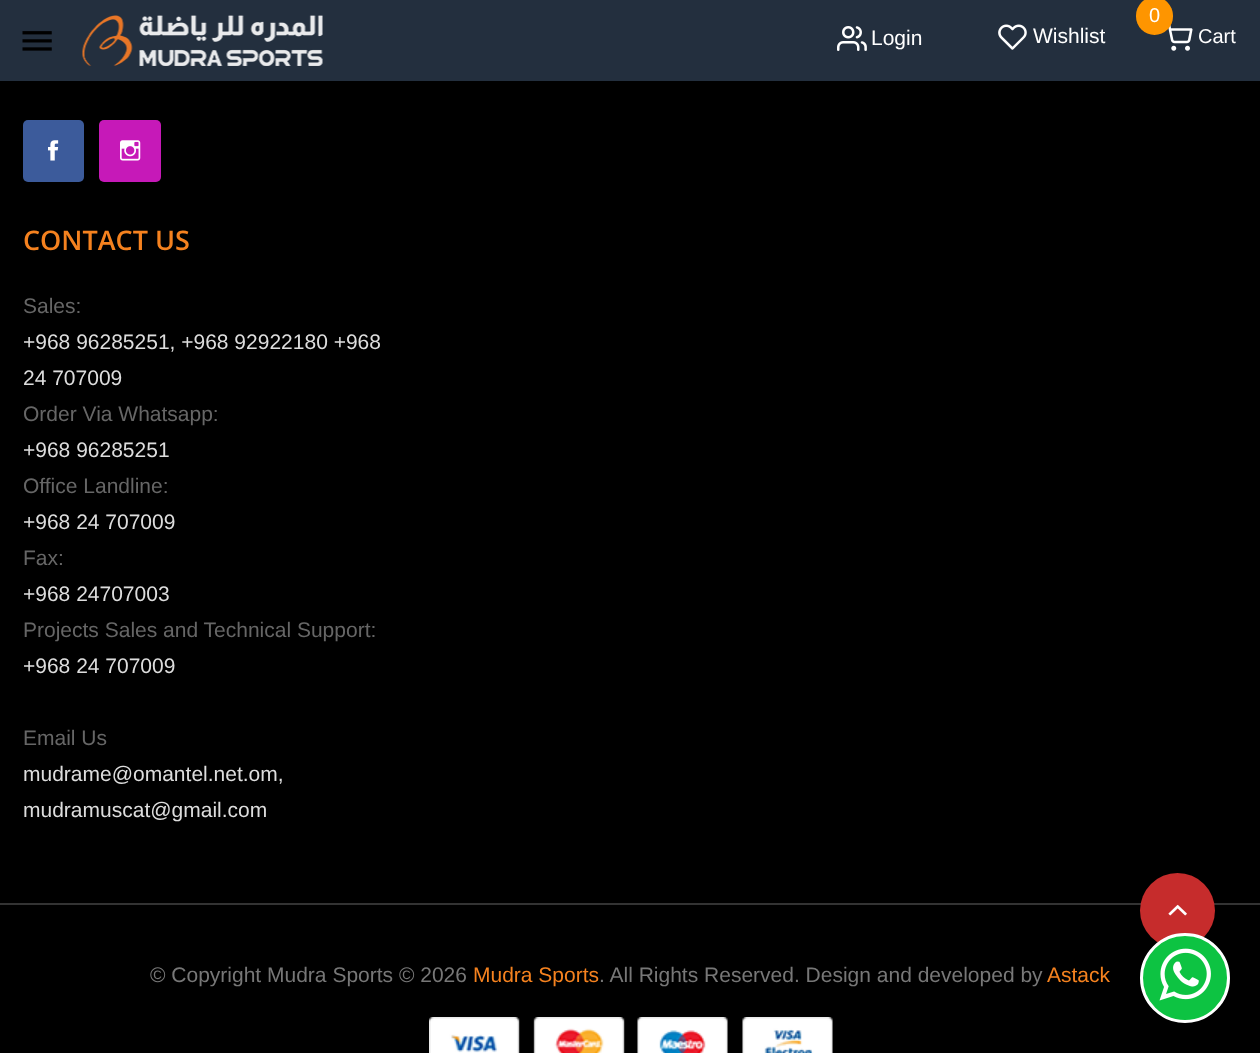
<svg xmlns="http://www.w3.org/2000/svg" width="1260" height="1053">
<rect width="100%" height="100%" fill="#000"/>
<rect width="1260" height="81" fill="#232f3e"/>
<image x="22" y="31" width="30" height="20" href="media/1.png"/>
<image x="82" y="15" width="241" height="51" href="media/2.png"/>
<image x="837" y="26" width="30" height="25" href="media/3.png"/>
<text x="871" y="45" style="font-family:Liberation Sans;font-size:21px;fill:#fff">Login</text>
<image x="998" y="24" width="29" height="26" href="media/4.png"/>
<text x="1033" y="43" style="font-family:Liberation Sans;font-size:21px;fill:#fff">Wishlist</text>
<image x="1168" y="24" width="25" height="27" href="media/5.png"/>
<rect x="1136" y="-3" width="37" height="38" rx="18.5" fill="#fe9500"/>
<text x="1149" y="22" style="font-family:Liberation Sans;font-size:20px;fill:#fff">0</text>
<text x="1198" y="43" style="font-family:Liberation Sans;font-size:20px;fill:#fff">Cart</text>
<rect x="23" y="120" width="61" height="62" rx="5" fill="#3c5b9b"/>
<image x="48" y="140" width="11" height="21" href="media/6.png"/>
<rect x="99" y="120" width="62" height="62" rx="5" fill="#c619b8"/>
<image x="120" y="140" width="21" height="21" href="media/7.png"/>
<text x="23" y="250" style="font-family:Open Sans;font-size:27px;font-weight:600;fill:#f5821f">CONTACT US</text>
<text x="23" y="313" style="font-family:Liberation Sans;font-size:21px;fill:#666">Sales:</text>
<text x="23" y="349" style="font-family:Liberation Sans;font-size:21px;fill:#ddd">+968 96285251, +968 92922180 +968</text>
<text x="23" y="385" style="font-family:Liberation Sans;font-size:21px;fill:#ddd">24 707009</text>
<text x="23" y="421" style="font-family:Liberation Sans;font-size:21px;fill:#666">Order Via Whatsapp:</text>
<text x="23" y="457" style="font-family:Liberation Sans;font-size:21px;fill:#ddd">+968 96285251</text>
<text x="23" y="493" style="font-family:Liberation Sans;font-size:21px;fill:#666">Office Landline:</text>
<text x="23" y="529" style="font-family:Liberation Sans;font-size:21px;fill:#ddd">+968 24 707009</text>
<text x="23" y="565" style="font-family:Liberation Sans;font-size:21px;fill:#666">Fax:</text>
<text x="23" y="601" style="font-family:Liberation Sans;font-size:21px;fill:#ddd">+968 24707003</text>
<text x="23" y="637" style="font-family:Liberation Sans;font-size:21px;fill:#666">Projects Sales and Technical Support:</text>
<text x="23" y="673" style="font-family:Liberation Sans;font-size:21px;fill:#ddd">+968 24 707009</text>
<text x="23" y="745" style="font-family:Liberation Sans;font-size:21px;fill:#666">Email Us</text>
<text x="23" y="781" style="font-family:Liberation Sans;font-size:21px;fill:#ddd">mudrame@omantel.net.om,</text>
<text x="23" y="817" style="font-family:Liberation Sans;font-size:21px;fill:#ddd">mudramuscat@gmail.com</text>
<rect y="903" width="1260" height="2" fill="#333"/>
<text x="150" y="982" style="font-family:Liberation Sans;font-size:21px;fill:#777">© Copyright Mudra Sports © 2026</text>
<text x="473" y="982" style="font-family:Liberation Sans;font-size:21px;fill:#f5821f">Mudra Sports</text>
<text x="599" y="982" style="font-family:Liberation Sans;font-size:21px;fill:#777">. All Rights Reserved. Design and developed by</text>
<text x="1047" y="982" style="font-family:Liberation Sans;font-size:21px;fill:#f5821f">Astack</text>
<image x="429" y="1017" width="404" height="36" href="media/8.png"/>
<circle cx="1177.5" cy="910.5" r="37.5" fill="#c62c2c"/>
<image x="1168" y="904" width="19" height="12" href="media/9.png"/>
<circle cx="1185" cy="978" r="43.5" fill="#0dc342" stroke="#fff" stroke-width="3"/>
<image x="1159" y="948" width="52" height="53" href="media/10.png"/>
</svg>
